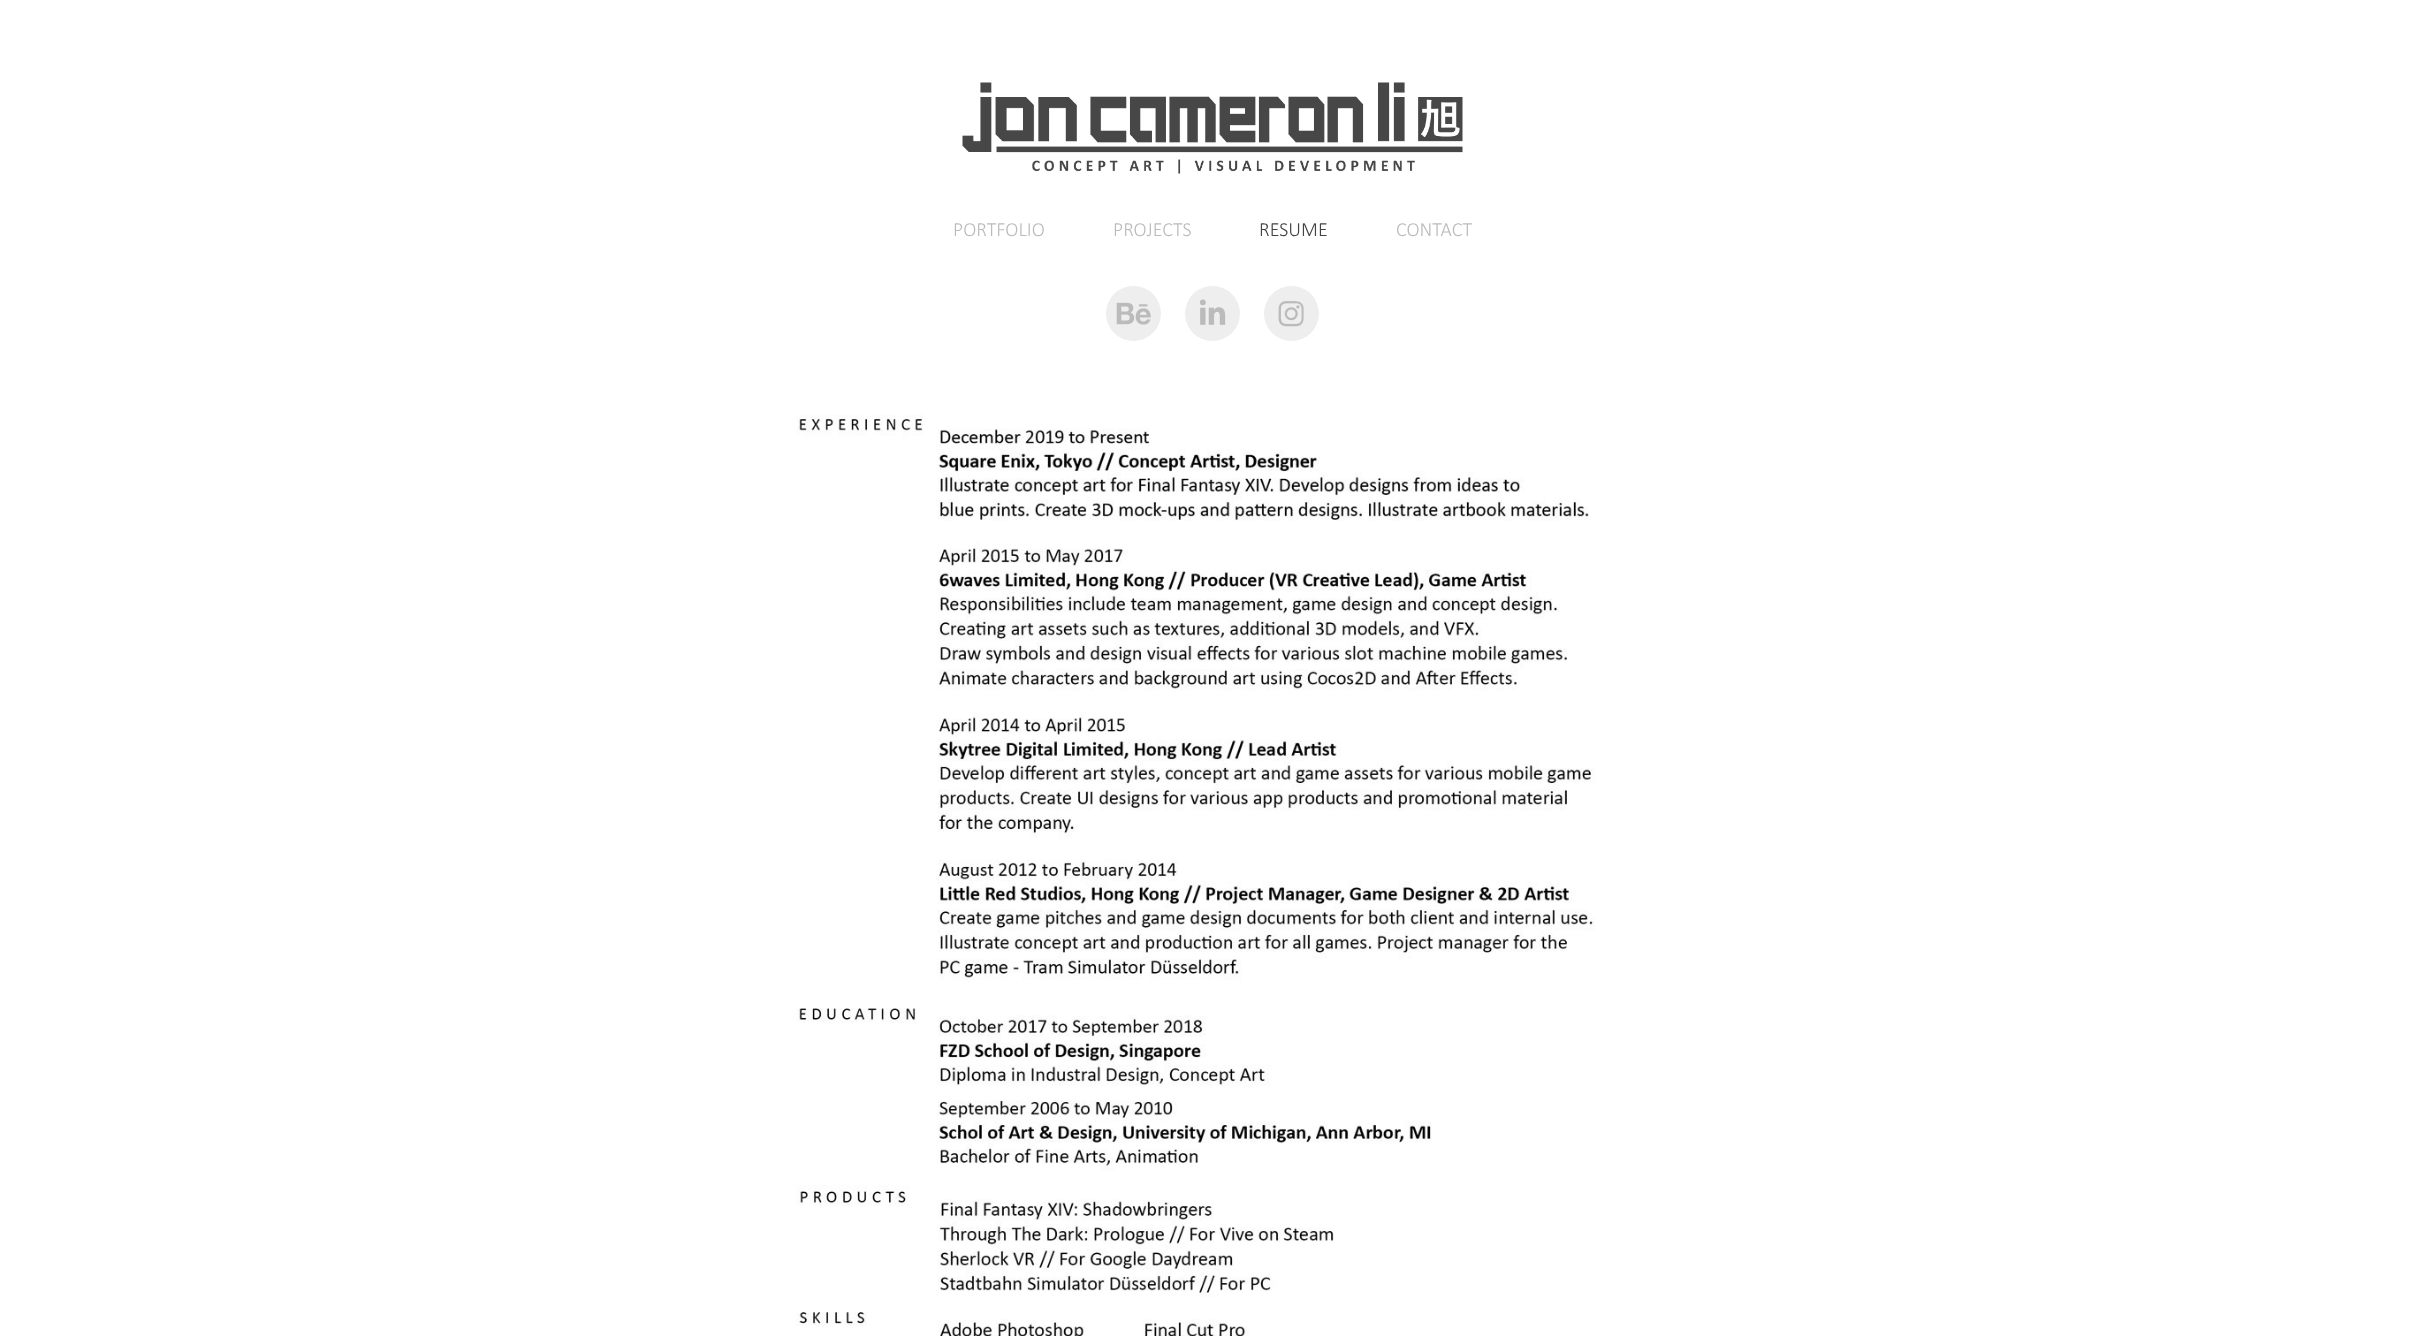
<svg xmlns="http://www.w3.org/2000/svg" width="2425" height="1336">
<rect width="100%" height="100%" fill="#fff"/>
<image x="962" y="82" width="501" height="92" href="media/1.png"/>
<text x="953" y="236" style="font-family:Calibri;font-size:20px;font-weight:300;fill:#bbb">PORTFOLIO</text>
<text x="1113" y="236" style="font-family:Calibri;font-size:20px;font-weight:300;fill:#bbb">PROJECTS</text>
<text x="1259" y="236" style="font-family:Calibri;font-size:20px;font-weight:300;fill:#444">RESUME</text>
<text x="1396" y="236" style="font-family:Calibri;font-size:20px;font-weight:300;fill:#bbb">CONTACT</text>
<circle cx="1133.5" cy="313.5" r="27.5" fill="#eee"/>
<image x="1116" y="302" width="35" height="23" href="media/2.png"/>
<circle cx="1212.5" cy="313.5" r="27.5" fill="#eee"/>
<image x="1199" y="299" width="27" height="26" href="media/3.png"/>
<circle cx="1291.5" cy="313.5" r="27.5" fill="#eee"/>
<image x="1278" y="301" width="26" height="26" href="media/4.png"/>
<image x="796" y="414" width="799" height="922" href="media/5.png"/>
</svg>
